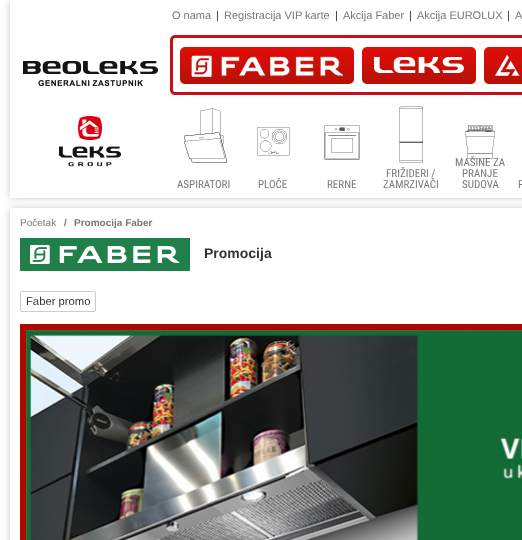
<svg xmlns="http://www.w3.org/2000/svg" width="522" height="540">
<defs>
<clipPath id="clip1"><path d="M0 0h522v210h-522zm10 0h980v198h-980z" clip-rule="evenodd"/></clipPath>
<clipPath id="clip2"><path d="M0 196h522v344h-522zm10 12h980v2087h-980z" clip-rule="evenodd"/></clipPath>
</defs>
<rect width="100%" height="100%" fill="#fff"/>
<g clip-path="url(#clip1)">
<rect x="10" width="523" height="198" fill="#cacaca" filter="blur(3.5px)"/>
</g>
<text x="172" y="19" style="font-family:Liberation Sans;font-size:11px;fill:#777">O nama</text>
<text x="216" y="19" style="font-family:Liberation Sans;font-size:11px;fill:#333">|</text>
<text x="224" y="19" style="font-family:Liberation Sans;font-size:11px;fill:#777">Registracija VIP karte</text>
<text x="335" y="19" style="font-family:Liberation Sans;font-size:11px;fill:#333">|</text>
<text x="343" y="19" style="font-family:Liberation Sans;font-size:11px;fill:#777">Akcija Faber</text>
<text x="409" y="19" style="font-family:Liberation Sans;font-size:11px;fill:#333">|</text>
<text x="417" y="19" style="font-family:Liberation Sans;font-size:11px;fill:#777">Akcija EUROLUX</text>
<text x="507" y="19" style="font-family:Liberation Sans;font-size:11px;fill:#333">|</text>
<text x="515" y="19" style="font-family:Liberation Sans;font-size:11px;fill:#777">A</text>
<image x="23" y="61" width="135" height="106" href="media/1.png"/>
<image x="170" y="35" width="352" height="60" href="media/2.png"/>
<image x="184" y="108" width="43" height="55" href="media/3.png"/>
<text x="177" y="188" style="font-family:Roboto Condensed;font-size:11px;fill:#777">ASPIRATORI</text>
<image x="257" y="127" width="33" height="29" href="media/4.png"/>
<text x="258" y="188" style="font-family:Roboto Condensed;font-size:11px;fill:#777">PLOČE</text>
<image x="324" y="125" width="36" height="35" href="media/5.png"/>
<text x="327" y="188" style="font-family:Roboto Condensed;font-size:11px;fill:#777">RERNE</text>
<image x="399" y="106" width="24" height="57" href="media/6.png"/>
<text x="386" y="177" style="font-family:Roboto Condensed;font-size:11px;fill:#777">FRIŽIDERI /</text>
<text x="383" y="188" style="font-family:Roboto Condensed;font-size:11px;fill:#777">ZAMRZIVAČI</text>
<text x="455" y="166" style="font-family:Roboto Condensed;font-size:11px;fill:#777">MAŠINE ZA</text>
<image x="465" y="125" width="30" height="34" href="media/7.png"/>
<text x="462" y="177" style="font-family:Roboto Condensed;font-size:11px;fill:#777">PRANJE</text>
<text x="462" y="188" style="font-family:Roboto Condensed;font-size:11px;fill:#777">SUDOVA</text>
<text x="518" y="188" style="font-family:Roboto Condensed;font-size:11px;fill:#777">P</text>
<g clip-path="url(#clip2)">
<rect x="10" y="208" width="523" height="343" fill="#cacaca" filter="blur(3.5px)"/>
</g>
<text x="20" y="226" style="font-family:Liberation Sans;font-size:10px;fill:#777">Početak</text>
<text x="64" y="226" style="font-family:Liberation Sans;font-size:10px;font-weight:bold;fill:#777">/</text>
<text x="74" y="226" style="font-family:Liberation Sans;font-size:10px;font-weight:bold;fill:#777">Promocija Faber</text>
<rect x="20" y="238" width="170" height="33" fill="#217f4a"/>
<image x="30" y="245" width="150" height="19" href="media/8.png"/>
<text x="204" y="258" style="font-family:Liberation Sans;font-size:14px;font-weight:bold;fill:#333">Promocija</text>
<rect x="20.5" y="291.5" width="75" height="20" rx="1.5" fill="none" stroke="#ccc"/>
<text x="26" y="305" style="font-family:Liberation Sans;font-size:11.25px;fill:#333">Faber promo</text>
<image x="20" y="324" width="502" height="216" href="media/9.png"/>
</svg>
